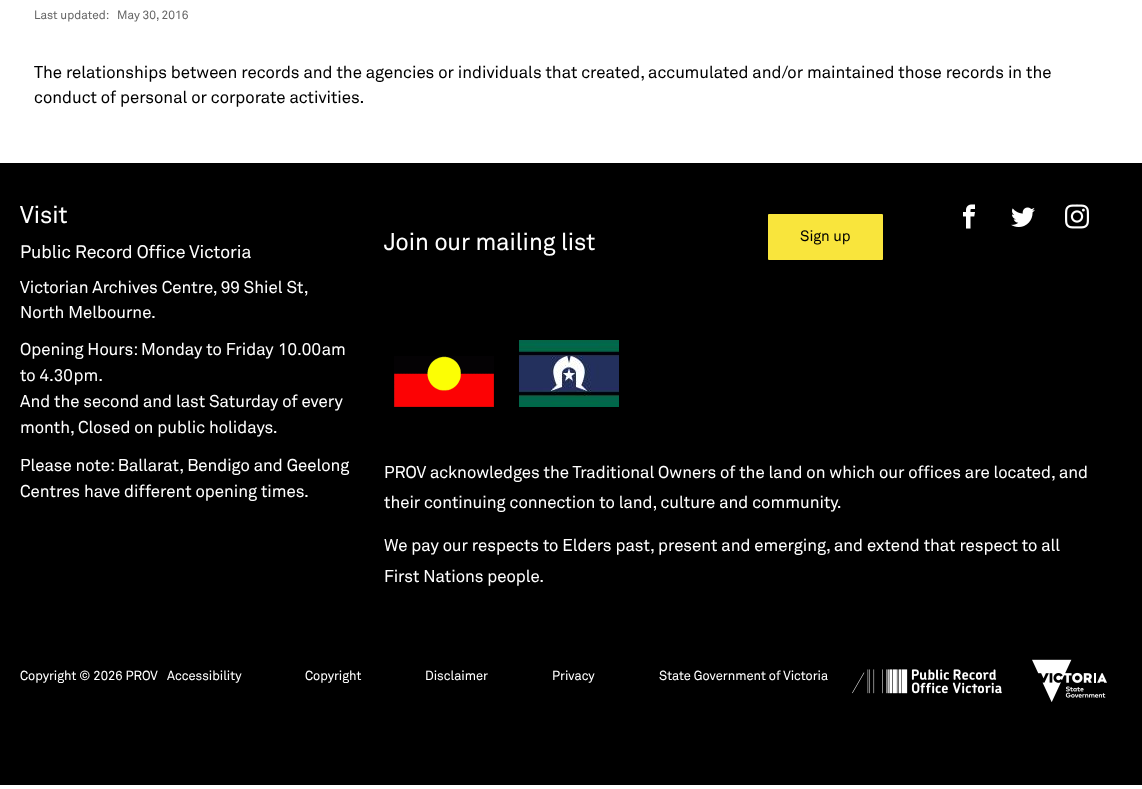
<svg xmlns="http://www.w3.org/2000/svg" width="1142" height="789">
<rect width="100%" height="100%" fill="#fff"/>
<text x="34" y="19" style="font-family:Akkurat;font-size:12px;fill:#666">Last updated:</text>
<text x="117" y="19" style="font-family:Akkurat;font-size:12px;fill:#666">May 30, 2016</text>
<text x="34" y="78" style="font-family:Akkurat;font-size:17.02px;fill:#000">The relationships between records and the agencies or individuals that created, accumulated and/or maintained those records in the</text>
<text x="34" y="103" style="font-family:Akkurat;font-size:17.02px;fill:#000">conduct of personal or corporate activities.</text>
<rect y="163" width="1142" height="622" fill="#000"/>
<text x="20" y="223" style="font-family:Akkurat;font-size:24px;fill:#fff">Visit</text>
<text x="20" y="258" style="font-family:Akkurat;font-size:18px;fill:#fff">Public Record Ofﬁce Victoria</text>
<text x="20" y="293" style="font-family:Akkurat;font-size:17.02px;fill:#fff">Victorian Archives Centre, 99 Shiel St,</text>
<text x="20" y="318" style="font-family:Akkurat;font-size:17.02px;fill:#fff">North Melbourne.</text>
<text x="20" y="355" style="font-family:Akkurat;font-size:17.02px;fill:#fff">Opening Hours: Monday to Friday</text>
<text x="278" y="355" style="font-family:Akkurat;font-size:17px;fill:#fff">10.00am</text>
<text x="20" y="381" style="font-family:Akkurat;font-size:17px;fill:#fff">to 4.30pm.</text>
<text x="20" y="407" style="font-family:Akkurat;font-size:17px;fill:#fff">And the second and last Saturday of every</text>
<text x="20" y="433" style="font-family:Akkurat;font-size:17px;fill:#fff">month, Closed on public holidays.</text>
<text x="20" y="471" style="font-family:Akkurat;font-size:17px;fill:#fff">Please note: Ballarat, Bendigo and Geelong</text>
<text x="20" y="497" style="font-family:Akkurat;font-size:17px;fill:#fff">Centres have different opening times.</text>
<image x="963" y="204" width="12" height="25" href="media/1.png"/>
<image x="1011" y="207" width="24" height="20" href="media/2.png"/>
<image x="1065" y="204" width="24" height="25" href="media/3.png"/>
<text x="384" y="250" style="font-family:Akkurat;font-size:24px;fill:#fff">Join our mailing list</text>
<rect x="768" y="214" width="115" height="46" rx="1" fill="#f9e53c"/>
<text x="800" y="241" style="font-family:Akkurat;font-size:15px;fill:#000">Sign up</text>
<image x="394" y="356" width="100" height="51" href="media/4.png"/>
<image x="519" y="340" width="100" height="67" href="media/5.png"/>
<text x="384" y="478" style="font-family:Akkurat;font-size:17.02px;fill:#fff">PROV acknowledges the Traditional Owners of the land on which our offices are located, and</text>
<text x="384" y="508" style="font-family:Akkurat;font-size:17.02px;fill:#fff">their continuing connection to land, culture and community.</text>
<text x="384" y="551" style="font-family:Akkurat;font-size:17.02px;fill:#fff">We pay our respects to Elders past, present and emerging, and extend that respect to all</text>
<text x="384" y="582" style="font-family:Akkurat;font-size:17.02px;fill:#fff">First Nations people.</text>
<text x="20" y="680" style="font-family:Akkurat;font-size:13px;fill:#fff">Copyright © 2026 PROV</text>
<text x="167" y="680" style="font-family:Akkurat;font-size:13px;fill:#fff">Accessibility</text>
<text x="305" y="680" style="font-family:Akkurat;font-size:13px;fill:#fff">Copyright</text>
<text x="425" y="680" style="font-family:Akkurat;font-size:13px;fill:#fff">Disclaimer</text>
<text x="552" y="680" style="font-family:Akkurat;font-size:13px;fill:#fff">Privacy</text>
<text x="659" y="680" style="font-family:Akkurat;font-size:13px;fill:#fff">State Government of Victoria</text>
<image x="852" y="669" width="150" height="25" href="media/6.png"/>
<image x="1032" y="659" width="75" height="43" href="media/7.png"/>
</svg>
